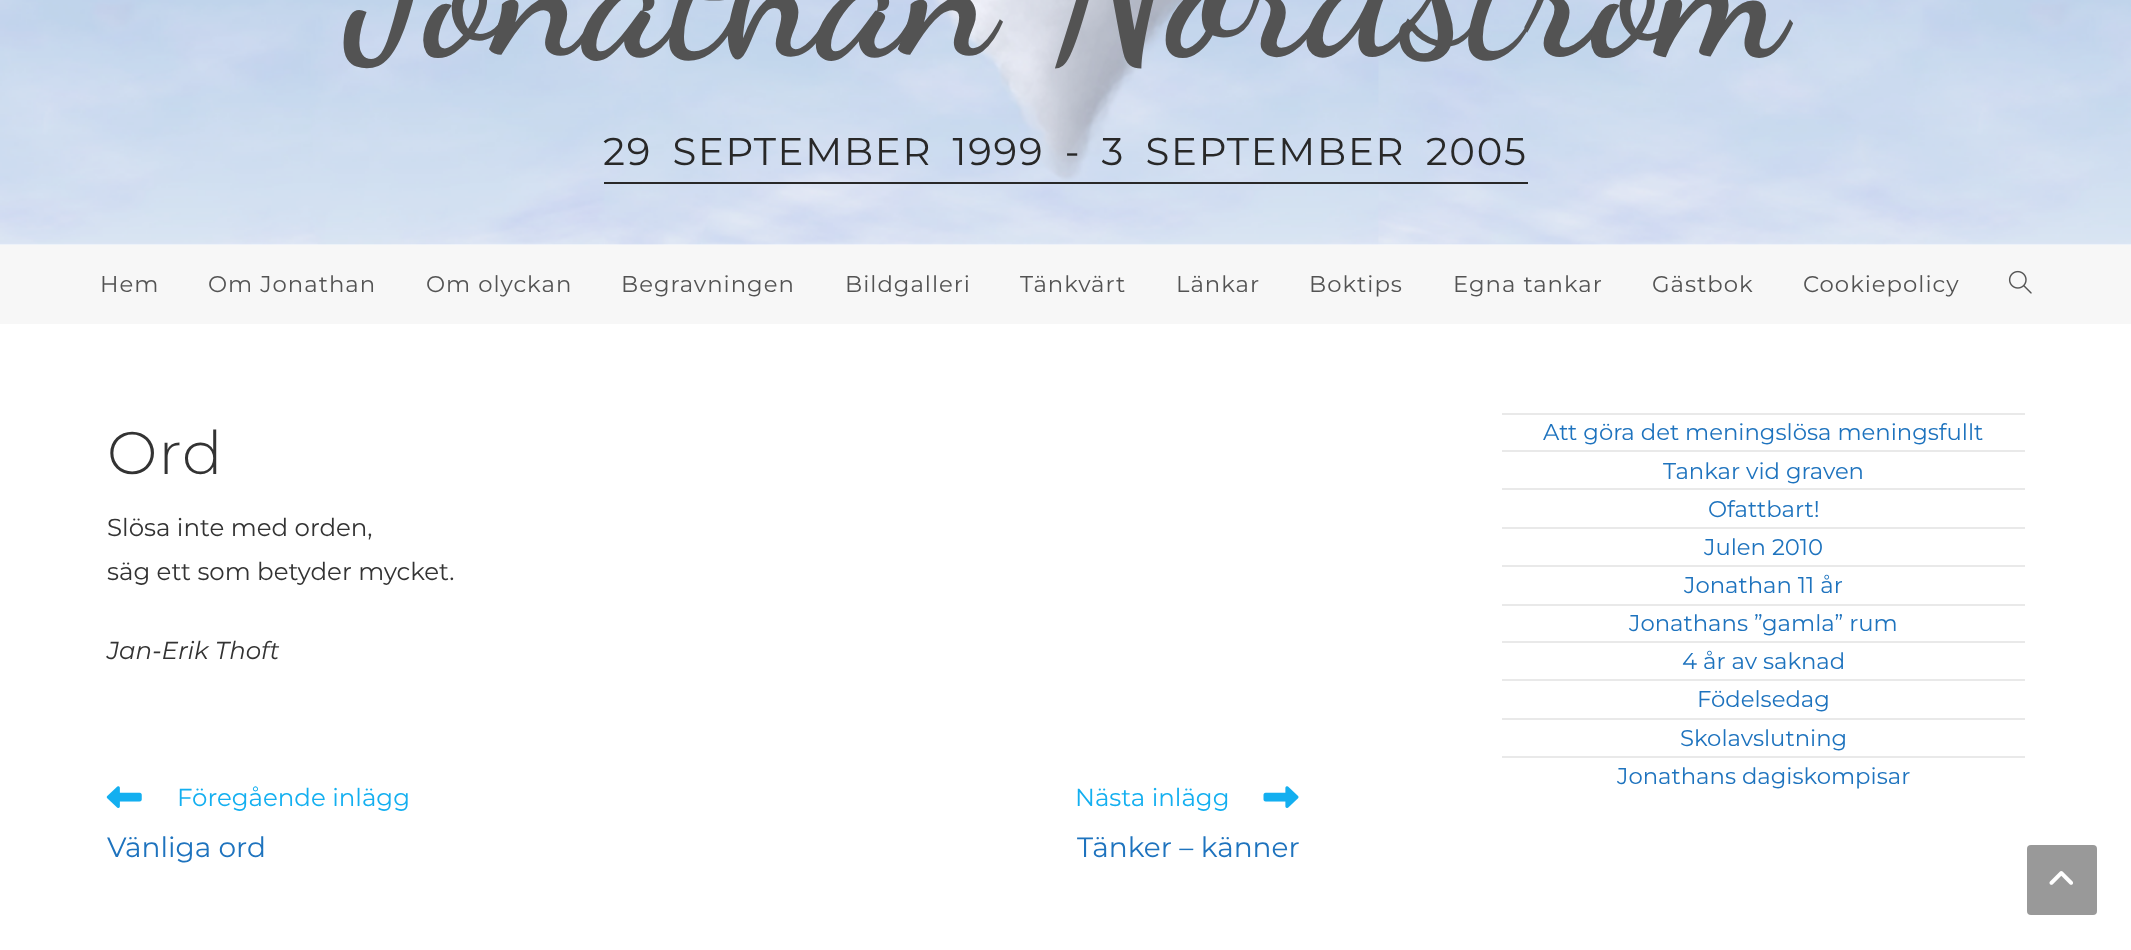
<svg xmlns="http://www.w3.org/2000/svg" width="2131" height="950">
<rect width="100%" height="100%" fill="#fff"/>
<image x="0" y="0" width="2131" height="245" href="media/1.png"/>
<text x="347" y="52" style="font-family:Dancing Script;font-size:190px;font-weight:bold;fill:#535353">Jonathan Nordström</text>
<rect x="604" y="182" width="924" height="2" fill="#282828"/>
<text x="603" y="165" word-spacing="8.5" style="font-family:Montserrat;font-size:38.7px;letter-spacing:1.75px;fill:#282828">29 SEPTEMBER 1999 - 3 SEPTEMBER 2005</text>
<rect y="245" width="2131" height="79" fill="#f7f7f7"/>
<text x="100" y="292" style="font-family:Montserrat;font-size:22.75px;letter-spacing:1px;fill:#535353">Hem</text>
<text x="208" y="292" style="font-family:Montserrat;font-size:22.75px;letter-spacing:1px;fill:#535353">Om Jonathan</text>
<text x="426" y="292" style="font-family:Montserrat;font-size:22.75px;letter-spacing:1px;fill:#535353">Om olyckan</text>
<text x="621" y="292" style="font-family:Montserrat;font-size:22.75px;letter-spacing:1px;fill:#535353">Begravningen</text>
<text x="845" y="292" style="font-family:Montserrat;font-size:22.75px;letter-spacing:1px;fill:#535353">Bildgalleri</text>
<text x="1020" y="292" style="font-family:Montserrat;font-size:22.75px;letter-spacing:1px;fill:#535353">Tänkvärt</text>
<text x="1176" y="292" style="font-family:Montserrat;font-size:22.75px;letter-spacing:1px;fill:#535353">Länkar</text>
<text x="1309" y="292" style="font-family:Montserrat;font-size:22.75px;letter-spacing:1px;fill:#535353">Boktips</text>
<text x="1453" y="292" style="font-family:Montserrat;font-size:22.75px;letter-spacing:1px;fill:#535353">Egna tankar</text>
<text x="1652" y="292" style="font-family:Montserrat;font-size:22.75px;letter-spacing:1px;fill:#535353">Gästbok</text>
<text x="1803" y="292" style="font-family:Montserrat;font-size:22.75px;letter-spacing:1px;fill:#535353">Cookiepolicy</text>
<image x="2008" y="270" width="24" height="24" href="media/2.png"/>
<text x="107" y="474" style="font-family:Montserrat;font-size:60px;font-weight:300;letter-spacing:1px;fill:#333">Ord</text>
<text x="107" y="536" style="font-family:Montserrat;font-size:24.5px;fill:#333">Slösa inte med orden,</text>
<text x="107" y="580" style="font-family:Montserrat;font-size:24.5px;fill:#333">säg ett som betyder mycket.</text>
<text x="107" y="659" style="font-family:Montserrat;font-size:24.5px;font-style:italic;fill:#333">Jan-Erik Thoft</text>
<image x="106" y="786" width="36" height="22" href="media/3.png"/>
<text x="177" y="806" style="font-family:Montserrat;font-size:24.5px;fill:#13aff0">Föregående inlägg</text>
<text x="107" y="857" style="font-family:Montserrat;font-size:28px;fill:#1e73be">Vänliga ord</text>
<text x="1075" y="806" style="font-family:Montserrat;font-size:24.5px;fill:#13aff0">Nästa inlägg</text>
<image x="1263" y="786" width="36" height="22" href="media/4.png"/>
<text x="1077" y="857" style="font-family:Montserrat;font-size:28px;fill:#1e73be">Tänker – känner</text>
<rect x="1502" y="413" width="523" height="2" fill="#e9e9e9"/>
<text x="1543" y="440" style="font-family:Montserrat;font-size:22.75px;fill:#1e73be">Att göra det meningslösa meningsfullt</text>
<rect x="1502" y="450" width="523" height="2" fill="#e9e9e9"/>
<text x="1663" y="479" style="font-family:Montserrat;font-size:22.75px;fill:#1e73be">Tankar vid graven</text>
<rect x="1502" y="488" width="523" height="2" fill="#e9e9e9"/>
<text x="1708" y="517" style="font-family:Montserrat;font-size:22.75px;fill:#1e73be">Ofattbart!</text>
<rect x="1502" y="527" width="523" height="2" fill="#e9e9e9"/>
<text x="1704" y="555" style="font-family:Montserrat;font-size:22.75px;fill:#1e73be">Julen 2010</text>
<rect x="1502" y="565" width="523" height="2" fill="#e9e9e9"/>
<text x="1684" y="593" style="font-family:Montserrat;font-size:22.75px;fill:#1e73be">Jonathan 11 år</text>
<rect x="1502" y="604" width="523" height="2" fill="#e9e9e9"/>
<text x="1629" y="631" style="font-family:Montserrat;font-size:22.75px;fill:#1e73be">Jonathans ”gamla” rum</text>
<rect x="1502" y="641" width="523" height="2" fill="#e9e9e9"/>
<text x="1682" y="669" style="font-family:Montserrat;font-size:22.75px;fill:#1e73be">4 år av saknad</text>
<rect x="1502" y="679" width="523" height="2" fill="#e9e9e9"/>
<text x="1697" y="707" style="font-family:Montserrat;font-size:22.75px;fill:#1e73be">Födelsedag</text>
<rect x="1502" y="718" width="523" height="2" fill="#e9e9e9"/>
<text x="1680" y="746" style="font-family:Montserrat;font-size:22.75px;fill:#1e73be">Skolavslutning</text>
<rect x="1502" y="756" width="523" height="2" fill="#e9e9e9"/>
<text x="1617" y="784" style="font-family:Montserrat;font-size:22.75px;fill:#1e73be">Jonathans dagiskompisar</text>
<rect x="2027" y="845" width="70" height="70" rx="4" fill="#999"/>
<image x="2049" y="871" width="24" height="14" href="media/5.png"/>
</svg>
